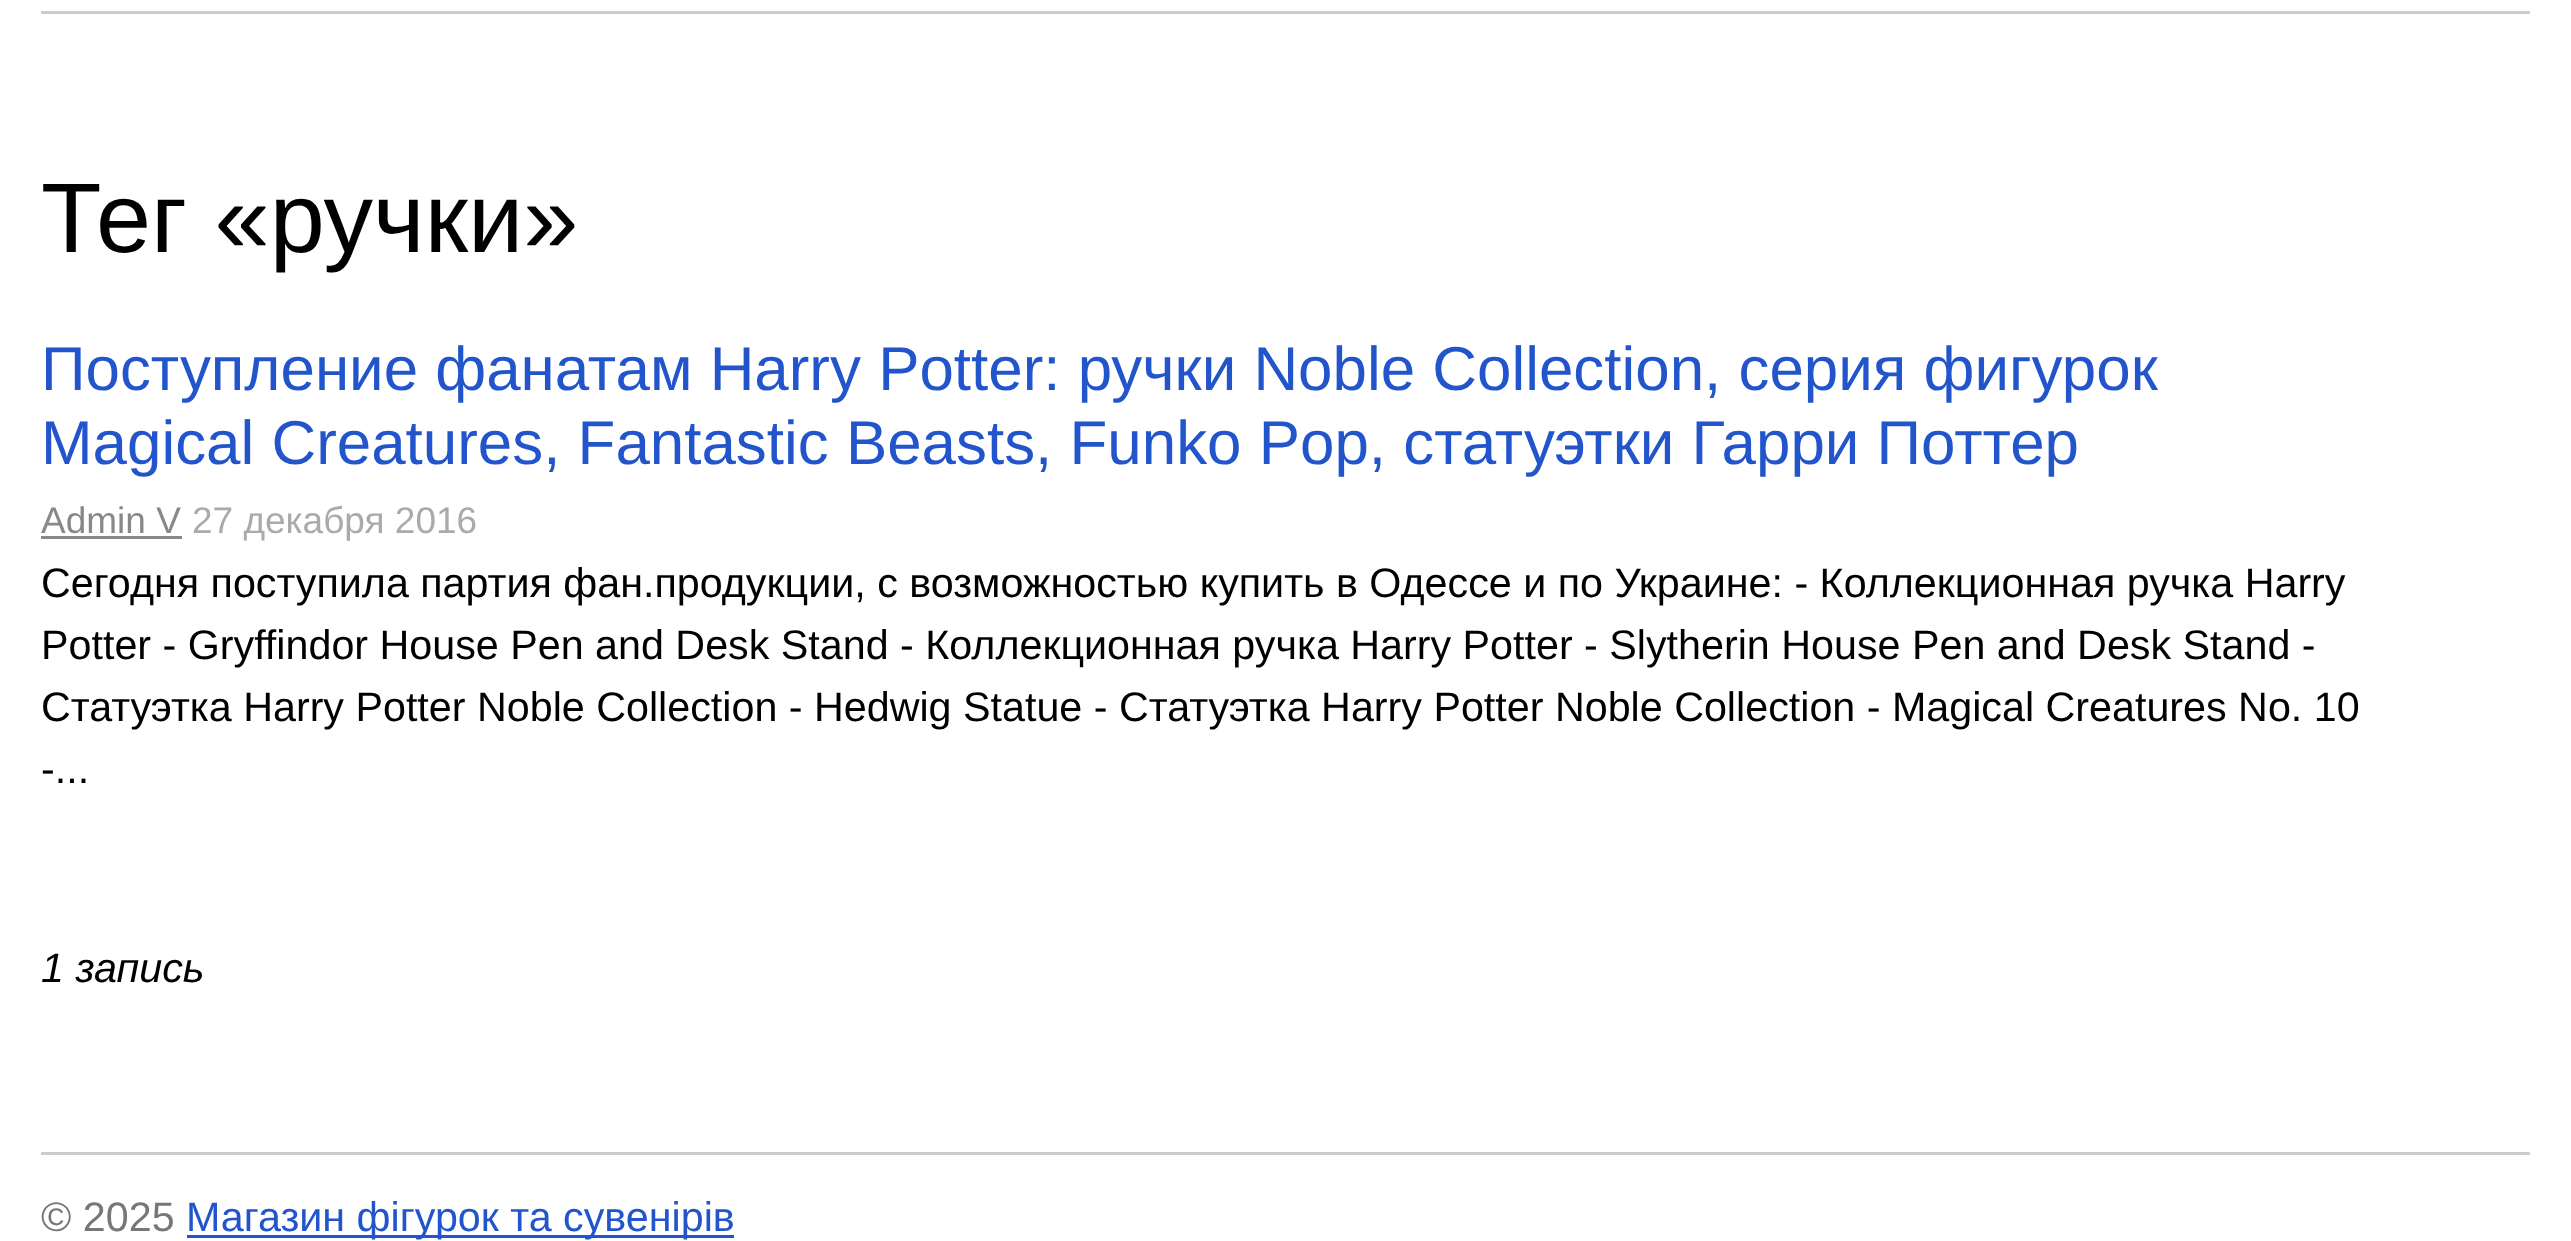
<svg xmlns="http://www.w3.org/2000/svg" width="2571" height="1241">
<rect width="100%" height="100%" fill="#fff"/>
<rect x="41" y="11" width="2489" height="3" fill="#ccc"/>
<text x="41" y="252" style="font-family:Liberation Sans;font-size:99px;fill:#000">Тег «ручки»</text>
<text x="41" y="390" style="font-family:Liberation Sans;font-size:61.9px;fill:#25c">Поступление фанатам Harry Potter: ручки Noble Collection, серия фигурок</text>
<text x="41" y="464" style="font-family:Liberation Sans;font-size:61.9px;fill:#25c">Magical Creatures, Fantastic Beasts, Funko Pop, статуэтки Гарри Поттер</text>
<text x="41" y="533" style="font-family:Liberation Sans;font-size:37px;fill:#888">Admin V</text>
<rect x="41" y="536" width="141" height="3" fill="#888"/>
<text x="192" y="533" style="font-family:Liberation Sans;font-size:37px;fill:#aaa">27 декабря 2016</text>
<text x="41" y="597" style="font-family:Liberation Sans;font-size:41.25px;fill:#000">Сегодня поступила партия фан.продукции, c возможностью купить в Одессе и по Украине: - Коллекционная ручка Harry</text>
<text x="41" y="659" style="font-family:Liberation Sans;font-size:41.25px;fill:#000">Potter - Gryffindor House Pen and Desk Stand - Коллекционная ручка Harry Potter - Slytherin House Pen and Desk Stand -</text>
<text x="41" y="721" style="font-family:Liberation Sans;font-size:41.25px;fill:#000">Статуэтка Harry Potter Noble Collection - Hedwig Statue - Статуэтка Harry Potter Noble Collection - Magical Creatures No. 10</text>
<text x="41" y="783" style="font-family:Liberation Sans;font-size:41.25px;fill:#000">-...</text>
<text x="41" y="982" style="font-family:Liberation Sans;font-size:41.25px;font-style:italic;fill:#000">1 запись</text>
<rect x="41" y="1152" width="2489" height="3" fill="#ccc"/>
<text x="41" y="1231" style="font-family:Liberation Sans;font-size:41.25px;fill:#777">© 2025</text>
<rect x="187" y="1235" width="547" height="3" fill="#25c"/>
<text x="186" y="1231" style="font-family:Liberation Sans;font-size:41.25px;fill:#25c">Магазин фігурок та сувенірів</text>
</svg>
